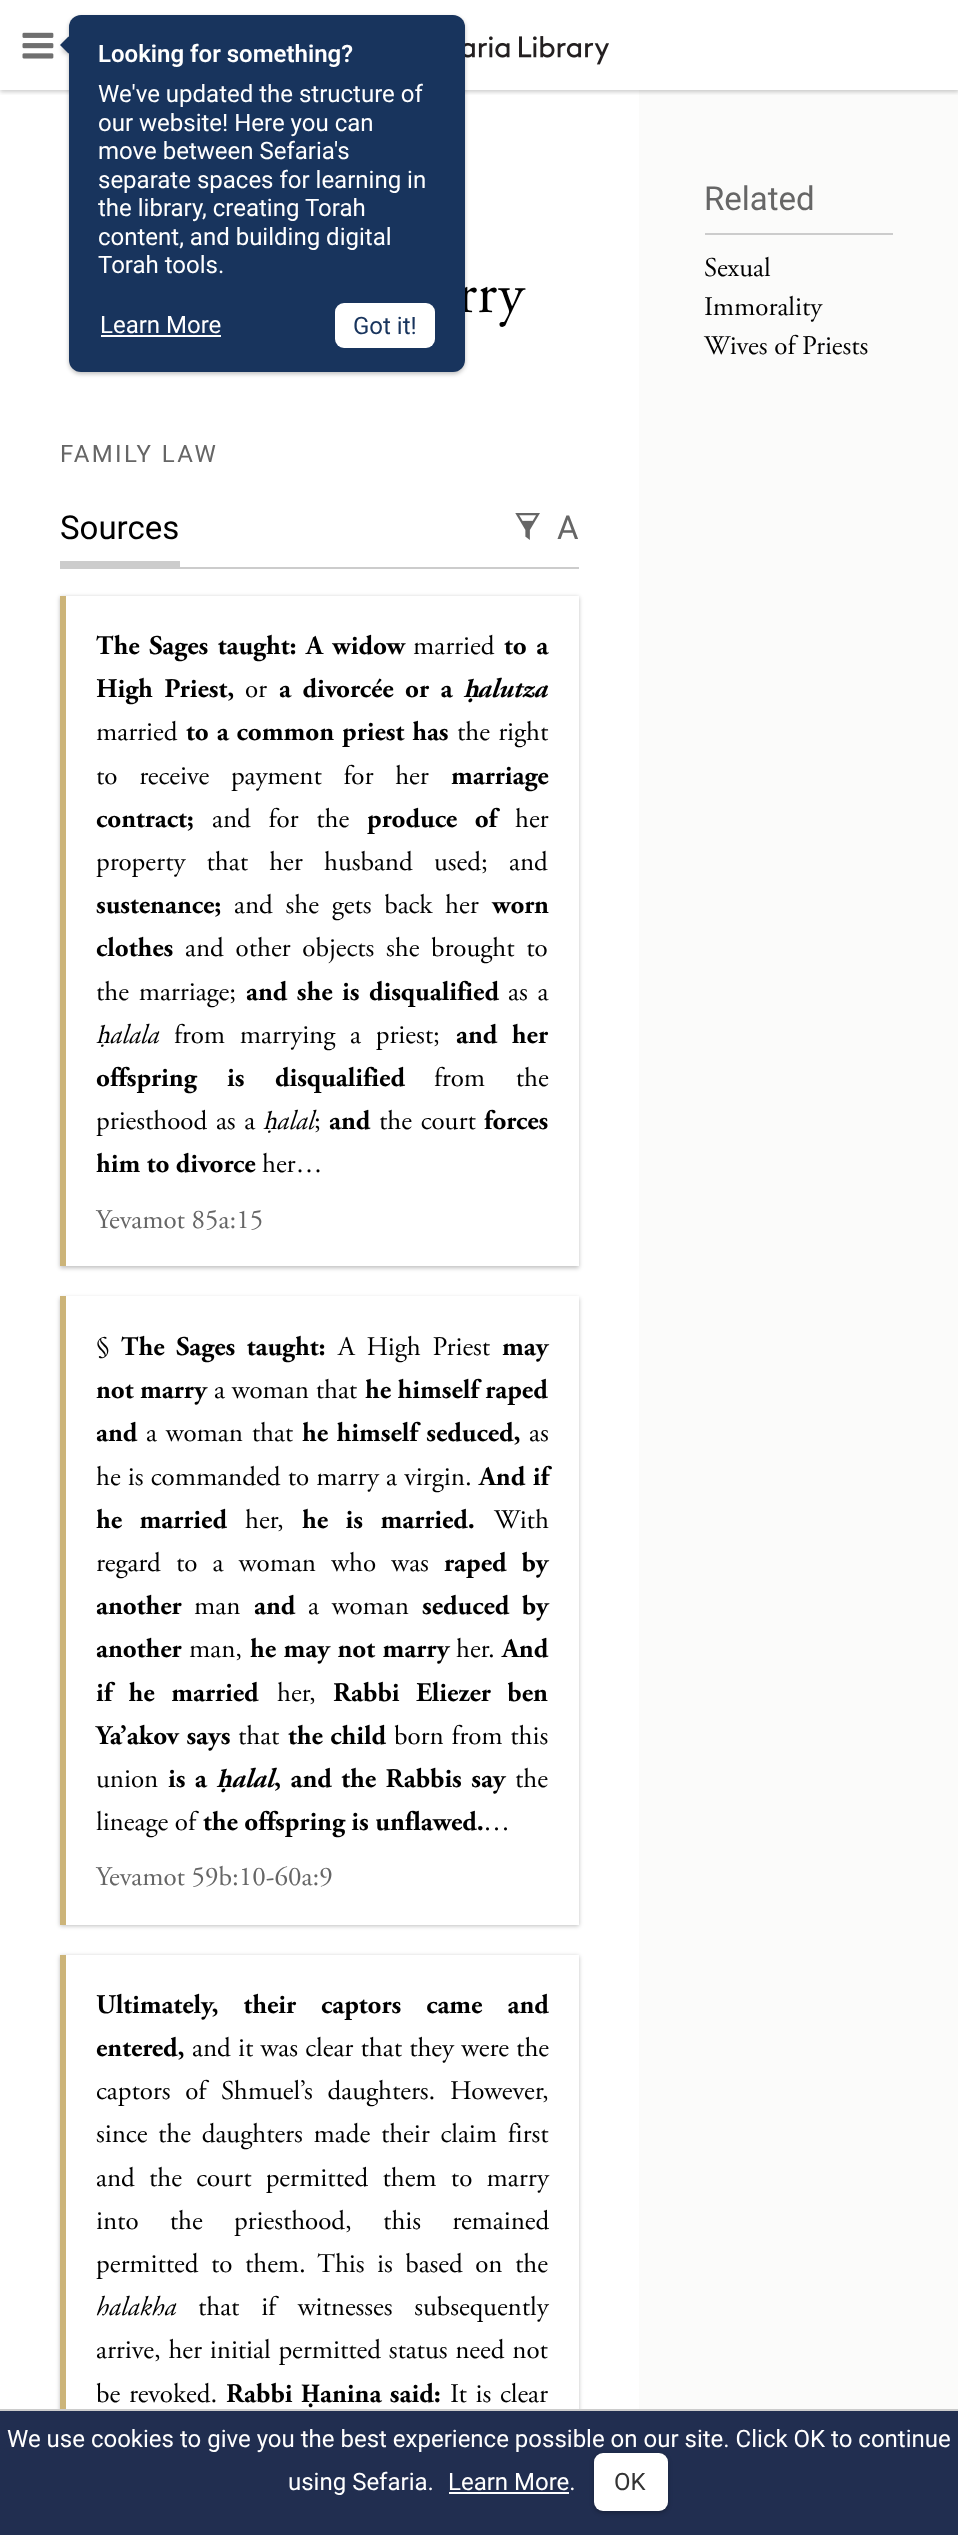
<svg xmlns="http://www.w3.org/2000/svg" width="958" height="2535">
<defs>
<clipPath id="clip1"><rect x="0" y="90" width="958" height="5"/></clipPath>
<clipPath id="clip2"><path d="M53 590h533v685h-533zm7 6h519v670h-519z" clip-rule="evenodd"/></clipPath>
<clipPath id="clip3"><path d="M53 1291h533v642h-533zm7 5h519v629h-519z" clip-rule="evenodd"/></clipPath>
<clipPath id="clip4"><path d="M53 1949h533v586h-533zm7 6h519v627h-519z" clip-rule="evenodd"/></clipPath>
</defs>
<rect width="100%" height="100%" fill="#fff"/>
<rect x="639" y="90" width="319" height="2319" fill="#fbfbfa"/>
<g clip-path="url(#clip1)">
<rect y="2" width="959" height="90" fill="#00000033" filter="blur(2px)"/>
</g>
<image x="22" y="32" width="32" height="27" href="media/1.png"/>
<image x="465" y="36" width="144" height="29" href="media/2.png"/>
<rect x="69" y="17" width="396" height="357" rx="12" fill="#00000040" filter="blur(2px)"/>
<rect x="63" y="41" width="12" height="12" fill="#00000040" filter="blur(2.5px)"/>
<path d="M68.5 36.5l8.5 8.5l-8.5 8.5l-8.5-8.5z" fill="#18345d"/>
<text x="457" y="312" style="font-family:Adobe Garamond;font-size:60px;fill:#000">rry</text>
<rect x="69" y="15" width="396" height="357" rx="12" fill="#18345d"/>
<text x="98" y="62" style="font-family:Roboto;font-size:24px;font-weight:600;fill:#fff">Looking for something?</text>
<text x="98" y="102" style="font-family:Roboto;font-size:24px;fill:#fff">We've updated the structure of</text>
<text x="98" y="131" style="font-family:Roboto;font-size:24px;fill:#fff">our website! Here you can</text>
<text x="98" y="159" style="font-family:Roboto;font-size:24px;fill:#fff">move between Sefaria's</text>
<text x="98" y="188" style="font-family:Roboto;font-size:24px;fill:#fff">separate spaces for learning in</text>
<text x="98" y="216" style="font-family:Roboto;font-size:24px;fill:#fff">the library, creating Torah</text>
<text x="98" y="245" style="font-family:Roboto;font-size:24px;fill:#fff">content, and building digital</text>
<text x="98" y="273" style="font-family:Roboto;font-size:24px;fill:#fff">Torah tools.</text>
<text x="100" y="333" style="font-family:Roboto;font-size:24px;fill:#fff">Learn More</text>
<rect x="101" y="335" width="120" height="2" fill="#fff"/>
<rect x="335" y="303" width="100" height="45" rx="9" fill="#fff"/>
<text x="353" y="334" style="font-family:Roboto;font-size:24px;fill:#18345d">Got it!</text>
<text x="60" y="462" style="font-family:Roboto;font-size:24px;letter-spacing:2.4px;fill:#666">FAMILY LAW</text>
<rect x="60" y="567" width="519" height="2" fill="#ccc"/>
<rect x="60" y="561" width="120" height="6" fill="#ccc"/>
<text x="60" y="539" style="font-family:Roboto;font-size:33px;fill:#000">Sources</text>
<image x="515" y="513" width="25" height="27" href="media/3.png"/>
<text x="557" y="539" style="font-family:Roboto;font-size:33px;fill:#666">A</text>
<g clip-path="url(#clip2)">
<rect x="60" y="597" width="519" height="671" fill="#00000040" filter="blur(2px)"/>
</g>
<rect x="60" y="596" width="6" height="670" fill="#ccb479"/>
<text x="96" y="654" word-spacing="3" style="font-family:Adobe Garamond;font-size:27px;font-weight:bold;fill:#000">The Sages taught: A widow</text>
<text x="413" y="654" style="font-family:Adobe Garamond;font-size:27px;fill:#000">married</text>
<text x="504" y="654" word-spacing="3" style="font-family:Adobe Garamond;font-size:27px;font-weight:bold;fill:#000">to a</text>
<text x="96" y="697" word-spacing="5" style="font-family:Adobe Garamond;font-size:27px;font-weight:bold;fill:#000">High Priest,</text>
<text x="245" y="697" style="font-family:Adobe Garamond;font-size:27px;fill:#000">or</text>
<text x="279" y="697" word-spacing="5" style="font-family:Adobe Garamond;font-size:27px;font-weight:bold;fill:#000">a divorcée or a</text>
<text x="463" y="697" style="font-family:Crimson Text;font-size:27px;font-weight:bold;font-style:italic;fill:#000">ḥ</text>
<text x="478" y="697" style="font-family:Adobe Garamond;font-size:27px;font-weight:bold;font-style:italic;fill:#000">alutza</text>
<text x="96" y="740" style="font-family:Adobe Garamond;font-size:27px;fill:#000">married</text>
<text x="186" y="740" word-spacing="1.5" style="font-family:Adobe Garamond;font-size:27px;font-weight:bold;fill:#000">to a common priest has</text>
<text x="457" y="740" word-spacing="1.5" style="font-family:Adobe Garamond;font-size:27px;fill:#000">the right</text>
<text x="96" y="784" word-spacing="15" style="font-family:Adobe Garamond;font-size:27px;fill:#000">to receive payment for her</text>
<text x="451" y="784" style="font-family:Adobe Garamond;font-size:27px;font-weight:bold;fill:#000">marriage</text>
<text x="96" y="827" style="font-family:Adobe Garamond;font-size:27px;font-weight:bold;fill:#000">contract;</text>
<text x="212" y="827" word-spacing="11" style="font-family:Adobe Garamond;font-size:27px;fill:#000">and for the</text>
<text x="367" y="827" word-spacing="11" style="font-family:Adobe Garamond;font-size:27px;font-weight:bold;fill:#000">produce of</text>
<text x="515" y="827" style="font-family:Adobe Garamond;font-size:27px;fill:#000">her</text>
<text x="96" y="870" word-spacing="14.5" style="font-family:Adobe Garamond;font-size:27px;fill:#000">property that her husband used; and</text>
<text x="96" y="913" style="font-family:Adobe Garamond;font-size:27px;font-weight:bold;fill:#000">sustenance;</text>
<text x="234" y="913" word-spacing="6" style="font-family:Adobe Garamond;font-size:27px;fill:#000">and she gets back her</text>
<text x="492" y="913" style="font-family:Adobe Garamond;font-size:27px;font-weight:bold;fill:#000">worn</text>
<text x="96" y="956" style="font-family:Adobe Garamond;font-size:27px;font-weight:bold;fill:#000">clothes</text>
<text x="185" y="956" word-spacing="5" style="font-family:Adobe Garamond;font-size:27px;fill:#000">and other objects she brought to</text>
<text x="96" y="1000" word-spacing="3" style="font-family:Adobe Garamond;font-size:27px;fill:#000">the marriage;</text>
<text x="246" y="1000" word-spacing="3" style="font-family:Adobe Garamond;font-size:27px;font-weight:bold;fill:#000">and she is disqualified</text>
<text x="508" y="1000" word-spacing="3" style="font-family:Adobe Garamond;font-size:27px;fill:#000">as a</text>
<text x="96" y="1043" style="font-family:Crimson Text;font-size:27px;font-style:italic;fill:#000">ḥ</text>
<text x="110" y="1043" style="font-family:Adobe Garamond;font-size:27px;font-style:italic;fill:#000">alala</text>
<text x="174" y="1043" word-spacing="8" style="font-family:Adobe Garamond;font-size:27px;fill:#000">from marrying a priest;</text>
<text x="456" y="1043" word-spacing="8" style="font-family:Adobe Garamond;font-size:27px;font-weight:bold;fill:#000">and her</text>
<text x="96" y="1086" word-spacing="24" style="font-family:Adobe Garamond;font-size:27px;font-weight:bold;fill:#000">offspring is disqualified</text>
<text x="434" y="1086" word-spacing="24" style="font-family:Adobe Garamond;font-size:27px;fill:#000">from the</text>
<text x="96" y="1129" word-spacing="2" style="font-family:Adobe Garamond;font-size:27px;fill:#000">priesthood as a</text>
<text x="263" y="1129" style="font-family:Crimson Text;font-size:27px;font-style:italic;fill:#000">ḥ</text>
<text x="277" y="1129" style="font-family:Adobe Garamond;font-size:27px;font-style:italic;fill:#000">alal</text>
<text x="314" y="1129" style="font-family:Adobe Garamond;font-size:27px;fill:#000">;</text>
<text x="329" y="1129" style="font-family:Adobe Garamond;font-size:27px;font-weight:bold;fill:#000">and</text>
<text x="379" y="1129" word-spacing="2" style="font-family:Adobe Garamond;font-size:27px;fill:#000">the court</text>
<text x="484" y="1129" style="font-family:Adobe Garamond;font-size:27px;font-weight:bold;fill:#000">forces</text>
<text x="96" y="1172" style="font-family:Adobe Garamond;font-size:27px;font-weight:bold;fill:#000">him to divorce</text>
<text x="262" y="1172" style="font-family:Adobe Garamond;font-size:27px;fill:#000">her…</text>
<text x="96" y="1228" style="font-family:Adobe Garamond;font-size:27px;fill:#666">Yevamot 85a:15</text>
<g clip-path="url(#clip3)">
<rect x="60" y="1298" width="519" height="628" fill="#00000040" filter="blur(2px)"/>
</g>
<rect x="60" y="1296" width="6" height="629" fill="#ccb479"/>
<text x="96" y="1355" style="font-family:Adobe Garamond;font-size:27px;fill:#000">§</text>
<text x="121" y="1355" word-spacing="5" style="font-family:Adobe Garamond;font-size:27px;font-weight:bold;fill:#000">The Sages taught:</text>
<text x="338" y="1355" word-spacing="5" style="font-family:Adobe Garamond;font-size:27px;fill:#000">A High Priest</text>
<text x="502" y="1355" style="font-family:Adobe Garamond;font-size:27px;font-weight:bold;fill:#000">may</text>
<text x="96" y="1398" style="font-family:Adobe Garamond;font-size:27px;font-weight:bold;fill:#000">not marry</text>
<text x="214" y="1398" style="font-family:Adobe Garamond;font-size:27px;fill:#000">a woman that</text>
<text x="365" y="1398" style="font-family:Adobe Garamond;font-size:27px;font-weight:bold;fill:#000">he himself raped</text>
<text x="96" y="1441" style="font-family:Adobe Garamond;font-size:27px;font-weight:bold;fill:#000">and</text>
<text x="146" y="1441" word-spacing="2" style="font-family:Adobe Garamond;font-size:27px;fill:#000">a woman that</text>
<text x="302" y="1441" word-spacing="2" style="font-family:Adobe Garamond;font-size:27px;font-weight:bold;fill:#000">he himself seduced,</text>
<text x="529" y="1441" style="font-family:Adobe Garamond;font-size:27px;fill:#000">as</text>
<text x="96" y="1485" word-spacing="0.5" style="font-family:Adobe Garamond;font-size:27px;fill:#000">he is commanded to marry a virgin.</text>
<text x="479" y="1485" word-spacing="1" style="font-family:Adobe Garamond;font-size:27px;font-weight:bold;fill:#000">And if</text>
<text x="96" y="1528" word-spacing="11" style="font-family:Adobe Garamond;font-size:27px;font-weight:bold;fill:#000">he married</text>
<text x="245" y="1528" style="font-family:Adobe Garamond;font-size:27px;fill:#000">her,</text>
<text x="302" y="1528" word-spacing="11" style="font-family:Adobe Garamond;font-size:27px;font-weight:bold;fill:#000">he is married.</text>
<text x="494" y="1528" style="font-family:Adobe Garamond;font-size:27px;fill:#000">With</text>
<text x="96" y="1571" word-spacing="8.5" style="font-family:Adobe Garamond;font-size:27px;fill:#000">regard to a woman who was</text>
<text x="444" y="1571" word-spacing="8.5" style="font-family:Adobe Garamond;font-size:27px;font-weight:bold;fill:#000">raped by</text>
<text x="96" y="1614" style="font-family:Adobe Garamond;font-size:27px;font-weight:bold;fill:#000">another</text>
<text x="194" y="1614" style="font-family:Adobe Garamond;font-size:27px;fill:#000">man</text>
<text x="254" y="1614" style="font-family:Adobe Garamond;font-size:27px;font-weight:bold;fill:#000">and</text>
<text x="308" y="1614" word-spacing="6" style="font-family:Adobe Garamond;font-size:27px;fill:#000">a woman</text>
<text x="422" y="1614" word-spacing="6" style="font-family:Adobe Garamond;font-size:27px;font-weight:bold;fill:#000">seduced by</text>
<text x="96" y="1657" style="font-family:Adobe Garamond;font-size:27px;font-weight:bold;fill:#000">another</text>
<text x="189" y="1657" style="font-family:Adobe Garamond;font-size:27px;fill:#000">man,</text>
<text x="250" y="1657" word-spacing="1" style="font-family:Adobe Garamond;font-size:27px;font-weight:bold;fill:#000">he may not marry</text>
<text x="456" y="1657" style="font-family:Adobe Garamond;font-size:27px;fill:#000">her.</text>
<text x="502" y="1657" style="font-family:Adobe Garamond;font-size:27px;font-weight:bold;fill:#000">And</text>
<text x="96" y="1701" word-spacing="10" style="font-family:Adobe Garamond;font-size:27px;font-weight:bold;fill:#000">if he married</text>
<text x="277" y="1701" style="font-family:Adobe Garamond;font-size:27px;fill:#000">her,</text>
<text x="333" y="1701" word-spacing="10" style="font-family:Adobe Garamond;font-size:27px;font-weight:bold;fill:#000">Rabbi Eliezer ben</text>
<text x="96" y="1744" word-spacing="1" style="font-family:Adobe Garamond;font-size:27px;font-weight:bold;fill:#000">Ya’akov says</text>
<text x="238" y="1744" style="font-family:Adobe Garamond;font-size:27px;fill:#000">that</text>
<text x="288" y="1744" word-spacing="1" style="font-family:Adobe Garamond;font-size:27px;font-weight:bold;fill:#000">the child</text>
<text x="394" y="1744" word-spacing="1" style="font-family:Adobe Garamond;font-size:27px;fill:#000">born from this</text>
<text x="96" y="1787" style="font-family:Adobe Garamond;font-size:27px;fill:#000">union</text>
<text x="168" y="1787" word-spacing="3" style="font-family:Adobe Garamond;font-size:27px;font-weight:bold;fill:#000">is a</text>
<text x="216" y="1787" style="font-family:Crimson Text;font-size:27px;font-weight:bold;font-style:italic;fill:#000">ḥ</text>
<text x="232" y="1787" style="font-family:Adobe Garamond;font-size:27px;font-weight:bold;font-style:italic;fill:#000">alal</text>
<text x="274" y="1787" word-spacing="3" style="font-family:Adobe Garamond;font-size:27px;font-weight:bold;fill:#000">, and the Rabbis say</text>
<text x="515" y="1787" style="font-family:Adobe Garamond;font-size:27px;fill:#000">the</text>
<text x="96" y="1830" style="font-family:Adobe Garamond;font-size:27px;fill:#000">lineage of</text>
<text x="203" y="1830" style="font-family:Adobe Garamond;font-size:27px;font-weight:bold;fill:#000">the offspring is unflawed.</text>
<text x="483" y="1830" style="font-family:Adobe Garamond;font-size:27px;fill:#000">…</text>
<text x="96" y="1885" style="font-family:Adobe Garamond;font-size:27px;fill:#666">Yevamot 59b:10-60a:9</text>
<g clip-path="url(#clip4)">
<rect x="60" y="1956" width="519" height="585" fill="#00000040" filter="blur(2px)"/>
</g>
<rect x="60" y="1955" width="6" height="454" fill="#ccb479"/>
<text x="96" y="2013" word-spacing="18.5" style="font-family:Adobe Garamond;font-size:27px;font-weight:bold;fill:#000">Ultimately, their captors came and</text>
<text x="96" y="2056" style="font-family:Adobe Garamond;font-size:27px;font-weight:bold;fill:#000">entered,</text>
<text x="192" y="2056" word-spacing="0.5" style="font-family:Adobe Garamond;font-size:27px;fill:#000">and it was clear that they were the</text>
<text x="96" y="2099" word-spacing="8" style="font-family:Adobe Garamond;font-size:27px;fill:#000">captors of Shmuel’s daughters. However,</text>
<text x="96" y="2142" word-spacing="4" style="font-family:Adobe Garamond;font-size:27px;fill:#000">since the daughters made their claim first</text>
<text x="96" y="2186" word-spacing="7.5" style="font-family:Adobe Garamond;font-size:27px;fill:#000">and the court permitted them to marry</text>
<text x="96" y="2229" word-spacing="24.5" style="font-family:Adobe Garamond;font-size:27px;fill:#000">into the priesthood, this remained</text>
<text x="96" y="2272" word-spacing="5.75" style="font-family:Adobe Garamond;font-size:27px;fill:#000">permitted to them. This is based on the</text>
<text x="96" y="2315" style="font-family:Adobe Garamond;font-size:27px;font-style:italic;fill:#000">halakha</text>
<text x="198" y="2315" word-spacing="15" style="font-family:Adobe Garamond;font-size:27px;fill:#000">that if witnesses subsequently</text>
<text x="96" y="2358" word-spacing="1" style="font-family:Adobe Garamond;font-size:27px;fill:#000">arrive, her initial permitted status need not</text>
<text x="96" y="2402" word-spacing="2" style="font-family:Adobe Garamond;font-size:27px;fill:#000">be revoked.</text>
<text x="226" y="2402" style="font-family:Adobe Garamond;font-size:27px;font-weight:bold;fill:#000">Rabbi</text>
<text x="301" y="2402" style="font-family:Crimson Text;font-size:27px;font-weight:bold;fill:#000">Ḥ</text>
<text x="320" y="2402" word-spacing="2" style="font-family:Adobe Garamond;font-size:27px;font-weight:bold;fill:#000">anina said:</text>
<text x="450" y="2402" word-spacing="2" style="font-family:Adobe Garamond;font-size:27px;fill:#000">It is clear</text>
<rect x="705" y="233" width="188" height="2" fill="#ccc"/>
<text x="704" y="210" style="font-family:Roboto;font-size:33px;fill:#666">Related</text>
<text x="704" y="276" style="font-family:Adobe Garamond;font-size:27px;fill:#000">Sexual</text>
<text x="704" y="315" style="font-family:Adobe Garamond;font-size:27px;fill:#000">Immorality</text>
<text x="704" y="354" style="font-family:Adobe Garamond;font-size:27px;fill:#000">Wives of Priests</text>
<rect y="2411" width="958" height="124" fill="#212e50"/>
<rect y="2409" width="958" height="2" fill="#ccc"/>
<text x="7" y="2447" style="font-family:Roboto;font-size:24px;fill:#fff">We use cookies to give you the best experience possible on our site. Click OK to continue</text>
<text x="288" y="2490" style="font-family:Roboto;font-size:24px;fill:#fff">using Sefaria.</text>
<text x="448" y="2490" style="font-family:Roboto;font-size:24px;fill:#fff">Learn More.</text>
<rect x="449" y="2492" width="120" height="2" fill="#fff"/>
<rect x="594" y="2454" width="74" height="59" rx="9" fill="#00000040" filter="blur(2px)"/>
<rect x="594" y="2453" width="74" height="58" rx="9" fill="#fff"/>
<text x="614" y="2490" style="font-family:Roboto;font-size:24px;fill:#333">OK</text>
</svg>
